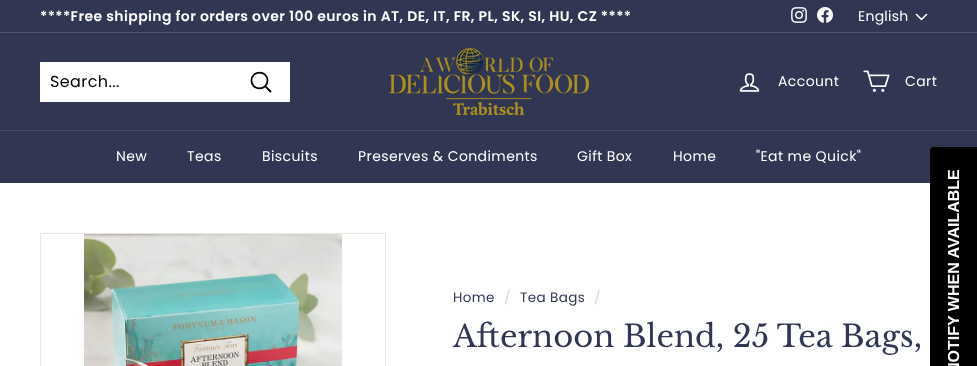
<svg xmlns="http://www.w3.org/2000/svg" width="977" height="366">
<rect width="100%" height="100%" fill="#fff"/>
<rect width="977" height="32" fill="#313652"/>
<text x="40" y="21" style="font-family:Poppins;font-size:14px;font-weight:600;letter-spacing:0.4px;fill:#fff">****Free shipping for orders over 100 euros in AT, DE, IT, FR, PL, SK, SI, HU, CZ ****</text>
<image x="791" y="7" width="16" height="16" href="media/1.png"/>
<image x="817" y="7" width="16" height="16" href="media/2.png"/>
<text x="858" y="21" style="font-family:Poppins;font-size:14px;letter-spacing:0.25px;fill:#fff">English</text>
<path d="M916.5 14.5l5 5l5-5" fill="none" stroke="#fff" stroke-width="1.6" stroke-linecap="round" stroke-linejoin="round"/>
<rect y="32" width="977" height="1" fill="#50546c"/>
<rect y="33" width="977" height="97" fill="#313652"/>
<rect x="40" y="62" width="250" height="40" fill="#fff"/>
<text x="50" y="87" style="font-family:Poppins;font-size:16px;letter-spacing:0.4px;fill:#000">Search...</text>
<path d="M267.5 80.5c0 10.5-16 10.5-16 0c0-10.5 16-10.5 16 0zm3 11l-5-5" fill="none" stroke="#000" stroke-width="1.8" stroke-linecap="round" stroke-linejoin="round"/>
<image x="389" y="48" width="200" height="67" href="media/3.png"/>
<image x="739" y="73" width="21" height="19" href="media/4.png"/>
<text x="778" y="86" style="font-family:Poppins;font-size:14px;letter-spacing:0.4px;fill:#fff">Account</text>
<image x="863" y="70" width="27" height="22" href="media/5.png"/>
<text x="905" y="86" style="font-family:Poppins;font-size:14px;letter-spacing:0.4px;fill:#fff">Cart</text>
<rect y="130" width="977" height="1" fill="#464a63"/>
<rect y="131" width="977" height="52" fill="#313652"/>
<text x="116" y="161" style="font-family:Poppins;font-size:14px;letter-spacing:0.4px;fill:#fff">New</text>
<text x="187" y="161" style="font-family:Poppins;font-size:14px;letter-spacing:0.4px;fill:#fff">Teas</text>
<text x="262" y="161" style="font-family:Poppins;font-size:14px;letter-spacing:0.4px;fill:#fff">Biscuits</text>
<text x="358" y="161" style="font-family:Poppins;font-size:14px;letter-spacing:0.4px;fill:#fff">Preserves &amp; Condiments</text>
<text x="577" y="161" style="font-family:Poppins;font-size:14px;letter-spacing:0.4px;fill:#fff">Gift Box</text>
<text x="673" y="161" style="font-family:Poppins;font-size:14px;letter-spacing:0.4px;fill:#fff">Home</text>
<text x="756" y="161" style="font-family:Poppins;font-size:14px;letter-spacing:0.4px;fill:#fff">"Eat me Quick"</text>
<rect x="40.5" y="233.5" width="345" height="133" fill="none" stroke="#e8e8e1"/>
<image x="84" y="234" width="258" height="132" href="media/6.png"/>
<text x="453" y="302" style="font-family:Poppins;font-size:13.5px;letter-spacing:0.4px;fill:#313652">Home</text>
<text x="504" y="302" style="font-family:Poppins;font-size:13.5px;letter-spacing:0.4px;fill:#d6d7dc">/</text>
<text x="520" y="302" style="font-family:Poppins;font-size:13.5px;letter-spacing:0.4px;fill:#313652">Tea Bags</text>
<text x="594" y="302" style="font-family:Poppins;font-size:13.5px;letter-spacing:0.4px;fill:#d6d7dc">/</text>
<text x="453" y="347" style="font-family:Libre Baskerville;font-size:30.6px;fill:#313652">Afternoon Blend, 25 Tea Bags,</text>
<path d="M931 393v-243c0-1 1-2 2-2h44v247h-44c-1 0-2-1-2-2z" fill="#000"/>
<path d="M930 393v-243c0-1 1-3 3-3h44v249h-44c-2 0-3-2-3-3zm1 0v-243c0-1 1-2 2-2h44v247h-44c-1 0-2-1-2-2z" fill="#000" fill-rule="evenodd"/>
<text x="959" y="374" transform="rotate(-90 959 374)" style="font-family:Liberation Sans;font-size:16px;font-weight:bold;fill:#fff">NOTIFY WHEN AVAILABLE</text>
</svg>
